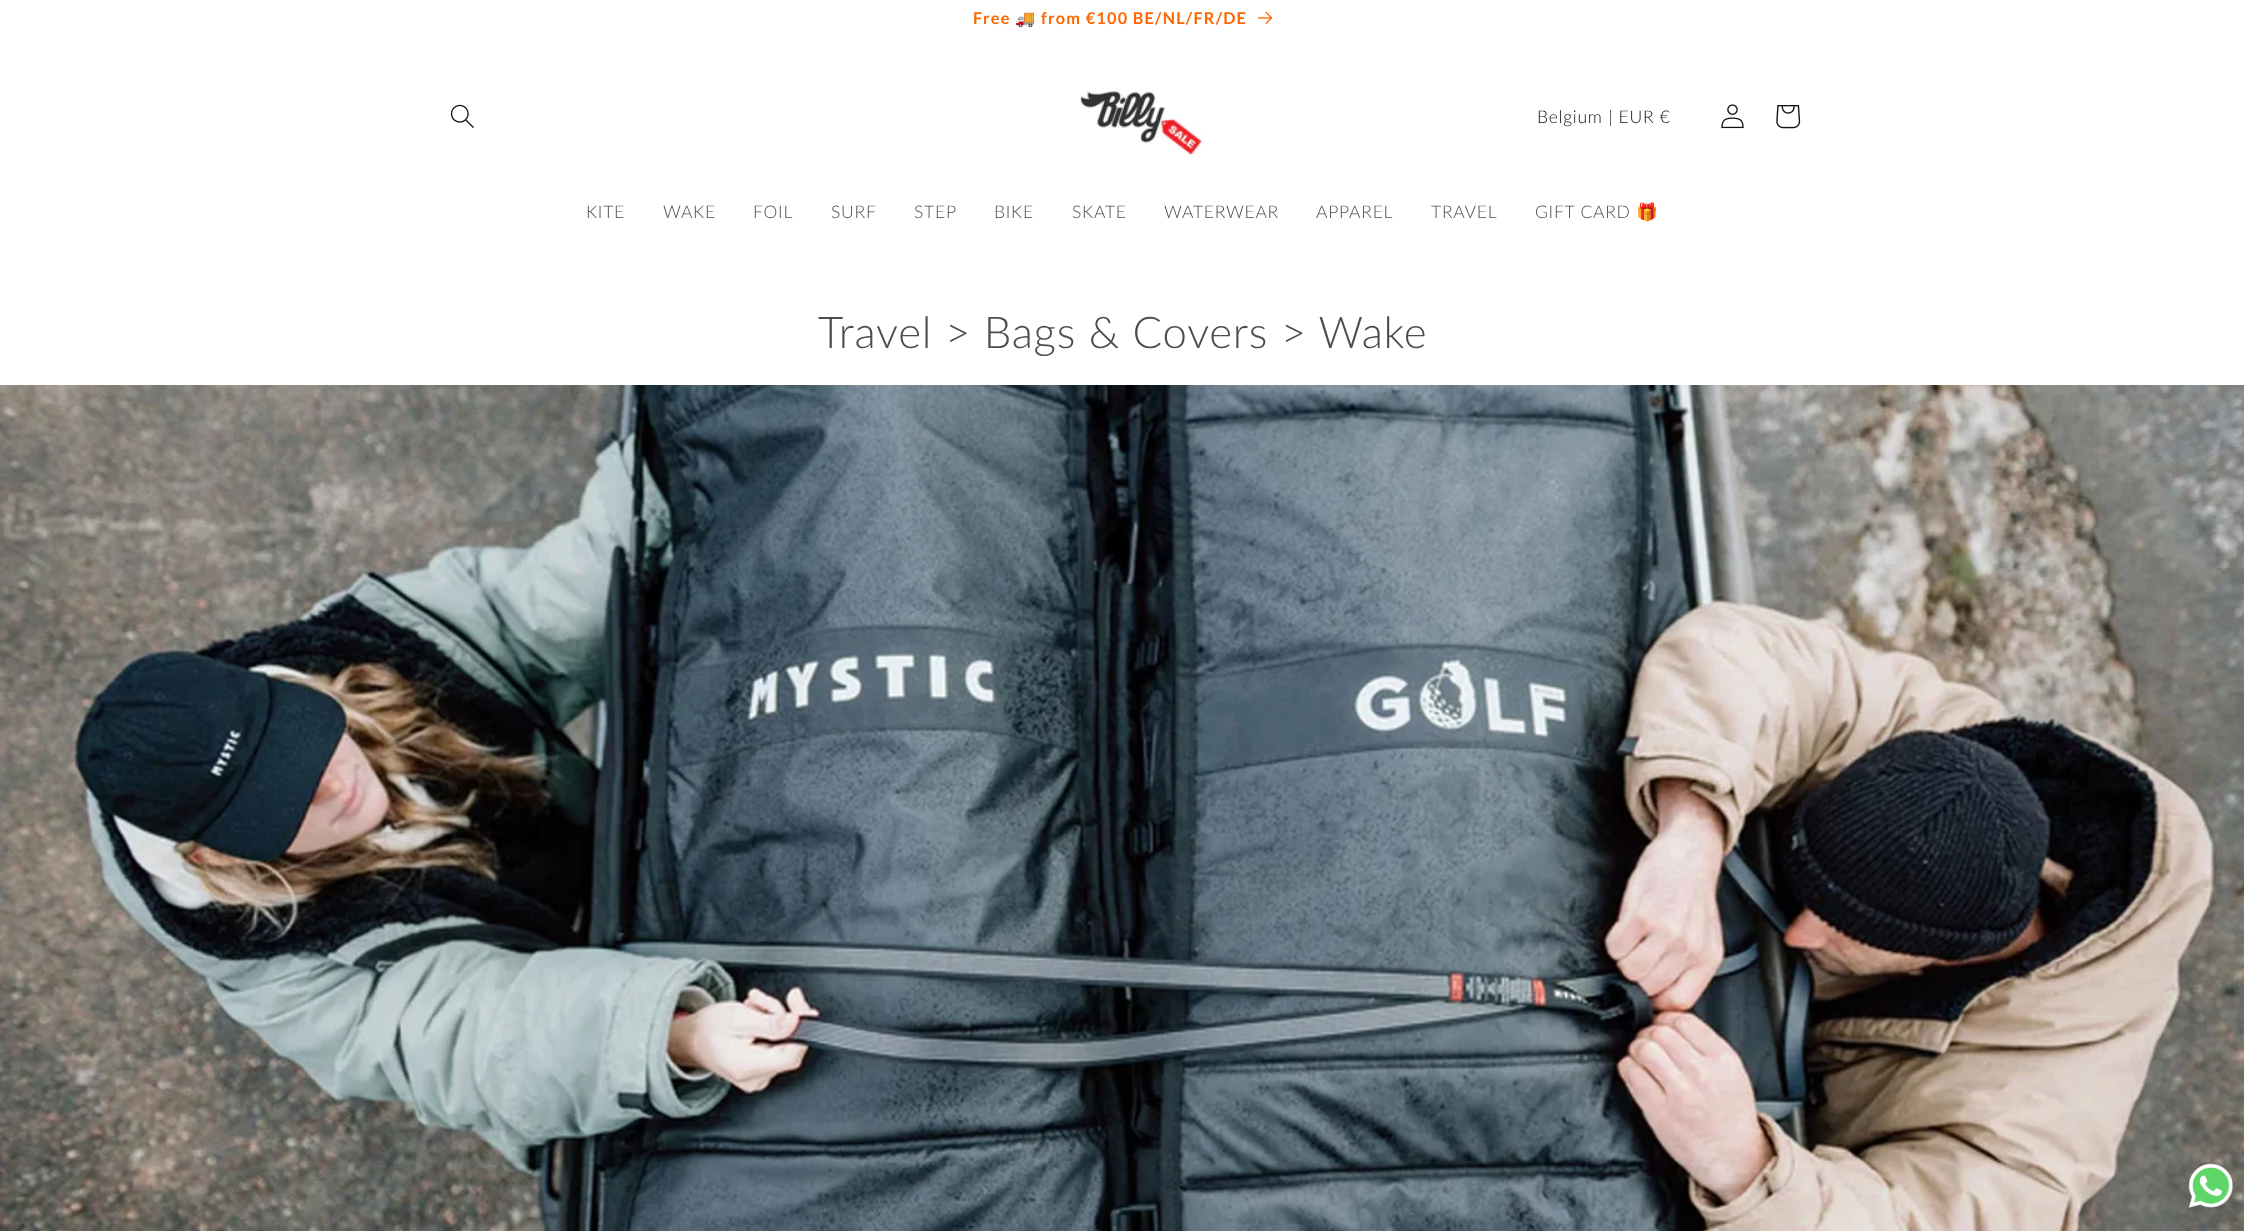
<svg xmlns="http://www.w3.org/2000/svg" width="2244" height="1231">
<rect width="100%" height="100%" fill="#fff"/>
<text x="973" y="24" style="font-family:Lato;font-size:16.25px;font-weight:bold;letter-spacing:1.25px;fill:#f60">Free</text>
<text x="1015" y="24" style="font-family:Noto Color Emoji;font-size:16.25px;font-weight:bold;letter-spacing:1.25px;fill:#f60">🚚</text>
<text x="1041" y="24" style="font-family:Lato;font-size:16.25px;font-weight:bold;letter-spacing:1.25px;fill:#f60">from €100 BE/NL/FR/DE</text>
<image x="1258" y="11" width="15" height="13" href="media/1.png"/>
<image x="450" y="104" width="24" height="24" href="media/2.png"/>
<image x="1080" y="88" width="125" height="68" href="media/3.png"/>
<text x="1537" y="123" style="font-family:Lato;font-size:17.5px;font-weight:300;letter-spacing:0.75px;fill:#121212">Belgium | EUR €</text>
<image x="1721" y="104" width="23" height="25" href="media/4.png"/>
<image x="1776" y="105" width="25" height="24" href="media/5.png"/>
<text x="586" y="218" style="font-family:Lato;font-size:17.5px;font-weight:300;letter-spacing:0.75px;fill:#4d4d4d">KITE</text>
<text x="663" y="218" style="font-family:Lato;font-size:17.5px;font-weight:300;letter-spacing:0.75px;fill:#4d4d4d">WAKE</text>
<text x="753" y="218" style="font-family:Lato;font-size:17.5px;font-weight:300;letter-spacing:0.75px;fill:#4d4d4d">FOIL</text>
<text x="831" y="218" style="font-family:Lato;font-size:17.5px;font-weight:300;letter-spacing:0.75px;fill:#4d4d4d">SURF</text>
<text x="914" y="218" style="font-family:Lato;font-size:17.5px;font-weight:300;letter-spacing:0.75px;fill:#4d4d4d">STEP</text>
<text x="994" y="218" style="font-family:Lato;font-size:17.5px;font-weight:300;letter-spacing:0.75px;fill:#4d4d4d">BIKE</text>
<text x="1072" y="218" style="font-family:Lato;font-size:17.5px;font-weight:300;letter-spacing:0.75px;fill:#4d4d4d">SKATE</text>
<text x="1164" y="218" style="font-family:Lato;font-size:17.5px;font-weight:300;letter-spacing:0.75px;fill:#4d4d4d">WATERWEAR</text>
<text x="1316" y="218" style="font-family:Lato;font-size:17.5px;font-weight:300;letter-spacing:0.75px;fill:#4d4d4d">APPAREL</text>
<text x="1431" y="218" style="font-family:Lato;font-size:17.5px;font-weight:300;letter-spacing:0.75px;fill:#4d4d4d">TRAVEL</text>
<text x="1535" y="218" style="font-family:Lato;font-size:17.5px;font-weight:300;letter-spacing:0.75px;fill:#4d4d4d">GIFT CARD</text>
<text x="1636" y="218" style="font-family:Noto Color Emoji;font-size:17.5px;letter-spacing:0.75px;fill:#4d4d4d">🎁</text>
<text x="818" y="348" style="font-family:Lato;font-size:43.75px;font-weight:300;letter-spacing:0.75px;fill:#4d4d4d">Travel &gt; Bags &amp; Covers &gt; Wake</text>
<image x="0" y="385" width="2244" height="846" href="media/6.png"/>
<image x="2188" y="1163" width="45" height="45" href="media/7.png"/>
</svg>
